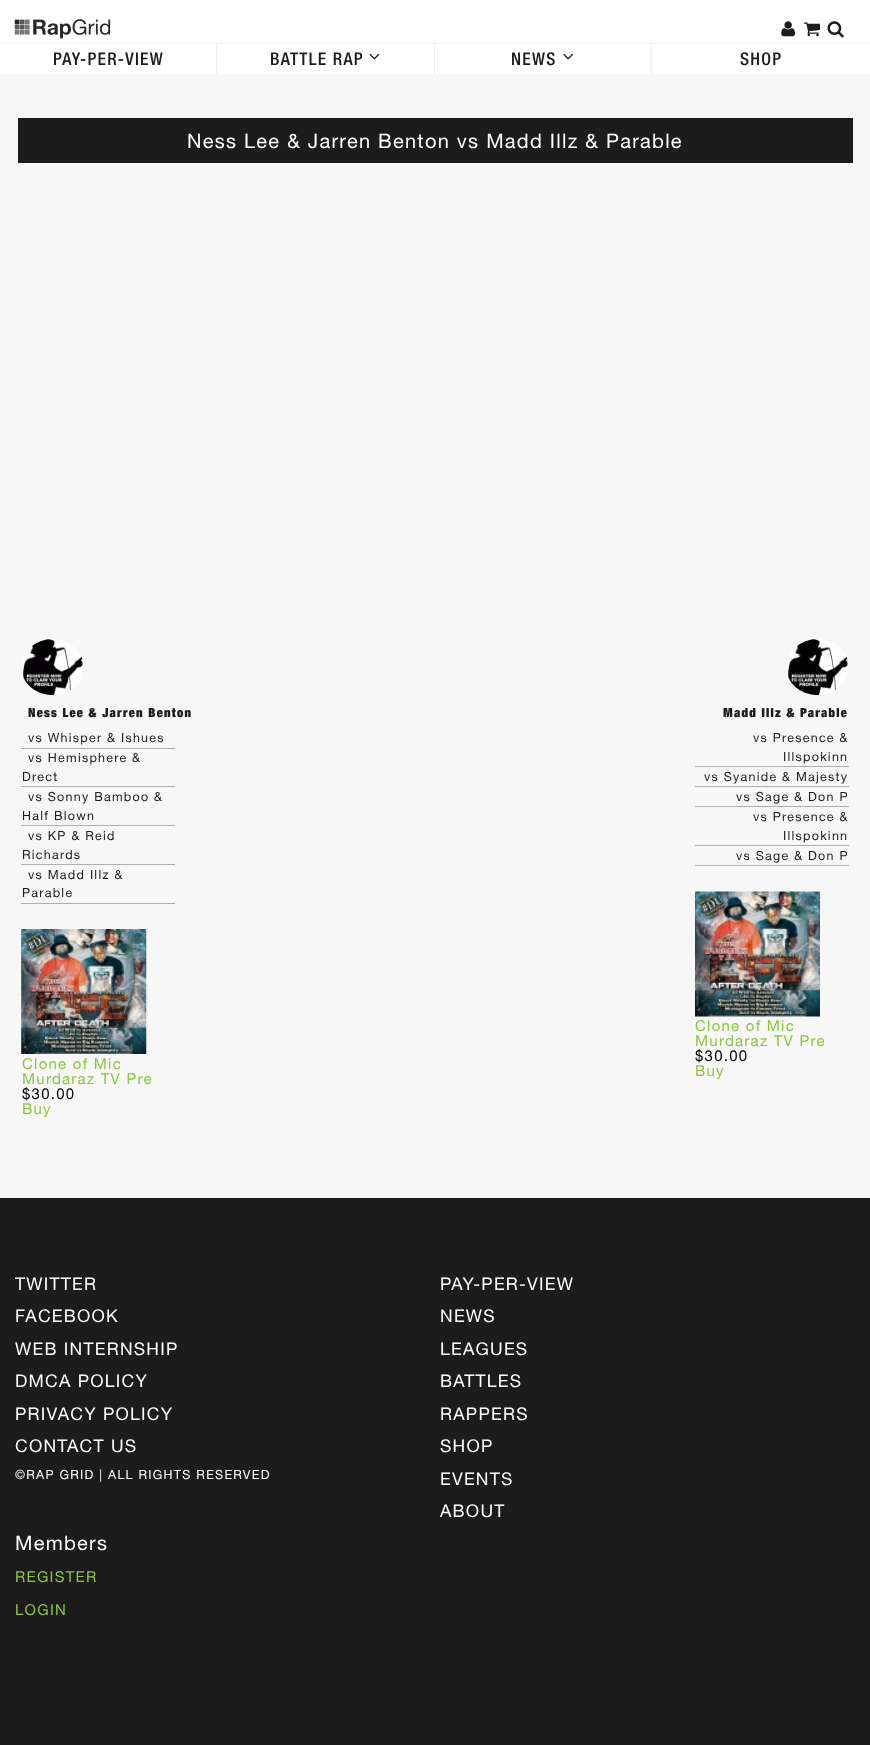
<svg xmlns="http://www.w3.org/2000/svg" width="870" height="1745">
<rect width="100%" height="100%" fill="#f7f7f7"/>
<rect width="870" height="74" fill="#fff"/>
<image x="14" y="19" width="97" height="20" href="media/1.png"/>
<image x="781" y="21" width="14" height="16" href="media/2.png"/>
<image x="803" y="22" width="17" height="15" href="media/3.png"/>
<image x="827" y="21" width="17" height="17" href="media/4.png"/>
<rect y="43" width="870" height="1" fill="#eee"/>
<rect x="216" y="44" width="1" height="30" fill="#eee"/>
<text x="53" y="65" style="font-family:'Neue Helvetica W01';font-size:17.5px;letter-spacing:1.25px;fill:#1c1c1c">PAY-PER-VIEW</text>
<rect x="434" y="44" width="1" height="30" fill="#eee"/>
<text x="270" y="65" style="font-family:'Neue Helvetica W01';font-size:17.5px;letter-spacing:1.25px;fill:#1c1c1c">BATTLE RAP</text>
<image x="369" y="53" width="11" height="7" href="media/5.png"/>
<rect x="651" y="44" width="1" height="30" fill="#eee"/>
<text x="511" y="65" style="font-family:'Neue Helvetica W01';font-size:17.5px;letter-spacing:1.25px;fill:#1c1c1c">NEWS</text>
<image x="563" y="53" width="10" height="7" href="media/6.png"/>
<text x="740" y="65" style="font-family:'Neue Helvetica W01';font-size:17.5px;letter-spacing:1.25px;fill:#1c1c1c">SHOP</text>
<rect x="18" y="118" width="835" height="45" fill="#1c1c1c"/>
<text x="187" y="148" style="font-family:'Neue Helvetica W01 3';font-size:20px;letter-spacing:1.25px;fill:#fff">Ness Lee &amp; Jarren Benton vs Madd Illz &amp; Parable</text>
<image x="22" y="639" width="61" height="57" href="media/7.png"/>
<text x="28" y="717" style="font-family:'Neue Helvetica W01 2';font-size:12.5px;letter-spacing:1.25px;fill:#1c1c1c">Ness Lee &amp; Jarren Benton</text>
<image x="787" y="639" width="61" height="57" href="media/8.png"/>
<text x="723" y="717" style="font-family:'Neue Helvetica W01 2';font-size:12.5px;letter-spacing:1.25px;fill:#1c1c1c">Madd Illz &amp; Parable</text>
<rect x="21" y="748" width="154" height="1" fill="#aeaeae"/>
<text x="28" y="742" style="font-family:'Neue Helvetica W01 3';font-size:12.5px;letter-spacing:1.25px;fill:#1c1c1c">vs Whisper &amp; Ishues</text>
<rect x="21" y="786" width="154" height="1" fill="#aeaeae"/>
<text x="28" y="762" style="font-family:'Neue Helvetica W01 3';font-size:12.5px;letter-spacing:1.25px;fill:#1c1c1c">vs Hemisphere &amp;</text>
<text x="22" y="781" style="font-family:'Neue Helvetica W01 3';font-size:12.5px;letter-spacing:1.25px;fill:#1c1c1c">Drect</text>
<rect x="21" y="825" width="154" height="1" fill="#aeaeae"/>
<text x="28" y="801" style="font-family:'Neue Helvetica W01 3';font-size:12.5px;letter-spacing:1.25px;fill:#1c1c1c">vs Sonny Bamboo &amp;</text>
<text x="22" y="820" style="font-family:'Neue Helvetica W01 3';font-size:12.5px;letter-spacing:1.25px;fill:#1c1c1c">Half Blown</text>
<rect x="21" y="864" width="154" height="1" fill="#aeaeae"/>
<text x="28" y="840" style="font-family:'Neue Helvetica W01 3';font-size:12.5px;letter-spacing:1.25px;fill:#1c1c1c">vs KP &amp; Reid</text>
<text x="22" y="859" style="font-family:'Neue Helvetica W01 3';font-size:12.5px;letter-spacing:1.25px;fill:#1c1c1c">Richards</text>
<rect x="21" y="903" width="154" height="1" fill="#aeaeae"/>
<text x="28" y="879" style="font-family:'Neue Helvetica W01 3';font-size:12.5px;letter-spacing:1.25px;fill:#1c1c1c">vs Madd Illz &amp;</text>
<text x="22" y="897" style="font-family:'Neue Helvetica W01 3';font-size:12.5px;letter-spacing:1.25px;fill:#1c1c1c">Parable</text>
<image x="21" y="929" width="126" height="125" href="media/9.png"/>
<text x="22" y="1069" style="font-family:'Neue Helvetica W01 3';font-size:15px;letter-spacing:1.25px;fill:#8cc63f">Clone of Mic</text>
<text x="22" y="1084" style="font-family:'Neue Helvetica W01 3';font-size:15px;letter-spacing:1.25px;fill:#8cc63f">Murdaraz TV Pre</text>
<text x="22" y="1099" style="font-family:'Neue Helvetica W01 3';font-size:15px;letter-spacing:1.25px;fill:#000">$30.00</text>
<text x="22" y="1114" style="font-family:'Neue Helvetica W01 3';font-size:15px;letter-spacing:1.25px;fill:#8cc63f">Buy</text>
<rect x="695" y="766" width="154" height="1" fill="#aeaeae"/>
<text x="753" y="742" style="font-family:'Neue Helvetica W01 3';font-size:12.5px;letter-spacing:1.25px;fill:#1c1c1c">vs Presence &amp;</text>
<text x="783" y="761" style="font-family:'Neue Helvetica W01 3';font-size:12.5px;letter-spacing:1.25px;fill:#1c1c1c">Illspokinn</text>
<rect x="695" y="786" width="154" height="1" fill="#aeaeae"/>
<text x="704" y="781" style="font-family:'Neue Helvetica W01 3';font-size:12.5px;letter-spacing:1.25px;fill:#1c1c1c">vs Syanide &amp; Majesty</text>
<rect x="695" y="806" width="154" height="1" fill="#aeaeae"/>
<text x="736" y="801" style="font-family:'Neue Helvetica W01 3';font-size:12.5px;letter-spacing:1.25px;fill:#1c1c1c">vs Sage &amp; Don P</text>
<rect x="695" y="845" width="154" height="1" fill="#aeaeae"/>
<text x="753" y="821" style="font-family:'Neue Helvetica W01 3';font-size:12.5px;letter-spacing:1.25px;fill:#1c1c1c">vs Presence &amp;</text>
<text x="783" y="840" style="font-family:'Neue Helvetica W01 3';font-size:12.5px;letter-spacing:1.25px;fill:#1c1c1c">Illspokinn</text>
<rect x="695" y="865" width="154" height="1" fill="#aeaeae"/>
<text x="736" y="860" style="font-family:'Neue Helvetica W01 3';font-size:12.5px;letter-spacing:1.25px;fill:#1c1c1c">vs Sage &amp; Don P</text>
<image x="695" y="891" width="125" height="126" href="media/10.png"/>
<text x="695" y="1031" style="font-family:'Neue Helvetica W01 3';font-size:15px;letter-spacing:1.25px;fill:#8cc63f">Clone of Mic</text>
<text x="695" y="1046" style="font-family:'Neue Helvetica W01 3';font-size:15px;letter-spacing:1.25px;fill:#8cc63f">Murdaraz TV Pre</text>
<text x="695" y="1061" style="font-family:'Neue Helvetica W01 3';font-size:15px;letter-spacing:1.25px;fill:#000">$30.00</text>
<text x="695" y="1076" style="font-family:'Neue Helvetica W01 3';font-size:15px;letter-spacing:1.25px;fill:#8cc63f">Buy</text>
<rect y="1198" width="870" height="547" fill="#1c1c1c"/>
<text x="15" y="1290" style="font-family:'Neue Helvetica W01 3';font-size:17.5px;letter-spacing:1.25px;fill:#fff">TWITTER</text>
<text x="15" y="1322" style="font-family:'Neue Helvetica W01 3';font-size:17.5px;letter-spacing:1.25px;fill:#fff">FACEBOOK</text>
<text x="15" y="1355" style="font-family:'Neue Helvetica W01 3';font-size:17.5px;letter-spacing:1.25px;fill:#fff">WEB INTERNSHIP</text>
<text x="15" y="1387" style="font-family:'Neue Helvetica W01 3';font-size:17.5px;letter-spacing:1.25px;fill:#fff">DMCA POLICY</text>
<text x="15" y="1420" style="font-family:'Neue Helvetica W01 3';font-size:17.5px;letter-spacing:1.25px;fill:#fff">PRIVACY POLICY</text>
<text x="15" y="1452" style="font-family:'Neue Helvetica W01 3';font-size:17.5px;letter-spacing:1.25px;fill:#fff">CONTACT US</text>
<text x="15" y="1479" style="font-family:'Neue Helvetica W01 3';font-size:12.5px;letter-spacing:1.25px;fill:#fff">©RAP GRID | ALL RIGHTS RESERVED</text>
<text x="440" y="1290" style="font-family:'Neue Helvetica W01 3';font-size:17.5px;letter-spacing:1.25px;fill:#fff">PAY-PER-VIEW</text>
<text x="440" y="1322" style="font-family:'Neue Helvetica W01 3';font-size:17.5px;letter-spacing:1.25px;fill:#fff">NEWS</text>
<text x="440" y="1355" style="font-family:'Neue Helvetica W01 3';font-size:17.5px;letter-spacing:1.25px;fill:#fff">LEAGUES</text>
<text x="440" y="1387" style="font-family:'Neue Helvetica W01 3';font-size:17.5px;letter-spacing:1.25px;fill:#fff">BATTLES</text>
<text x="440" y="1420" style="font-family:'Neue Helvetica W01 3';font-size:17.5px;letter-spacing:1.25px;fill:#fff">RAPPERS</text>
<text x="440" y="1452" style="font-family:'Neue Helvetica W01 3';font-size:17.5px;letter-spacing:1.25px;fill:#fff">SHOP</text>
<text x="440" y="1485" style="font-family:'Neue Helvetica W01 3';font-size:17.5px;letter-spacing:1.25px;fill:#fff">EVENTS</text>
<text x="440" y="1517" style="font-family:'Neue Helvetica W01 3';font-size:17.5px;letter-spacing:1.25px;fill:#fff">ABOUT</text>
<text x="15" y="1550" style="font-family:'Neue Helvetica W01 3';font-size:20px;letter-spacing:1.25px;fill:#fff">Members</text>
<text x="15" y="1582" style="font-family:'Neue Helvetica W01 3';font-size:15px;letter-spacing:1.25px;fill:#8cc63f">REGISTER</text>
<text x="15" y="1615" style="font-family:'Neue Helvetica W01 3';font-size:15px;letter-spacing:1.25px;fill:#8cc63f">LOGIN</text>
</svg>
